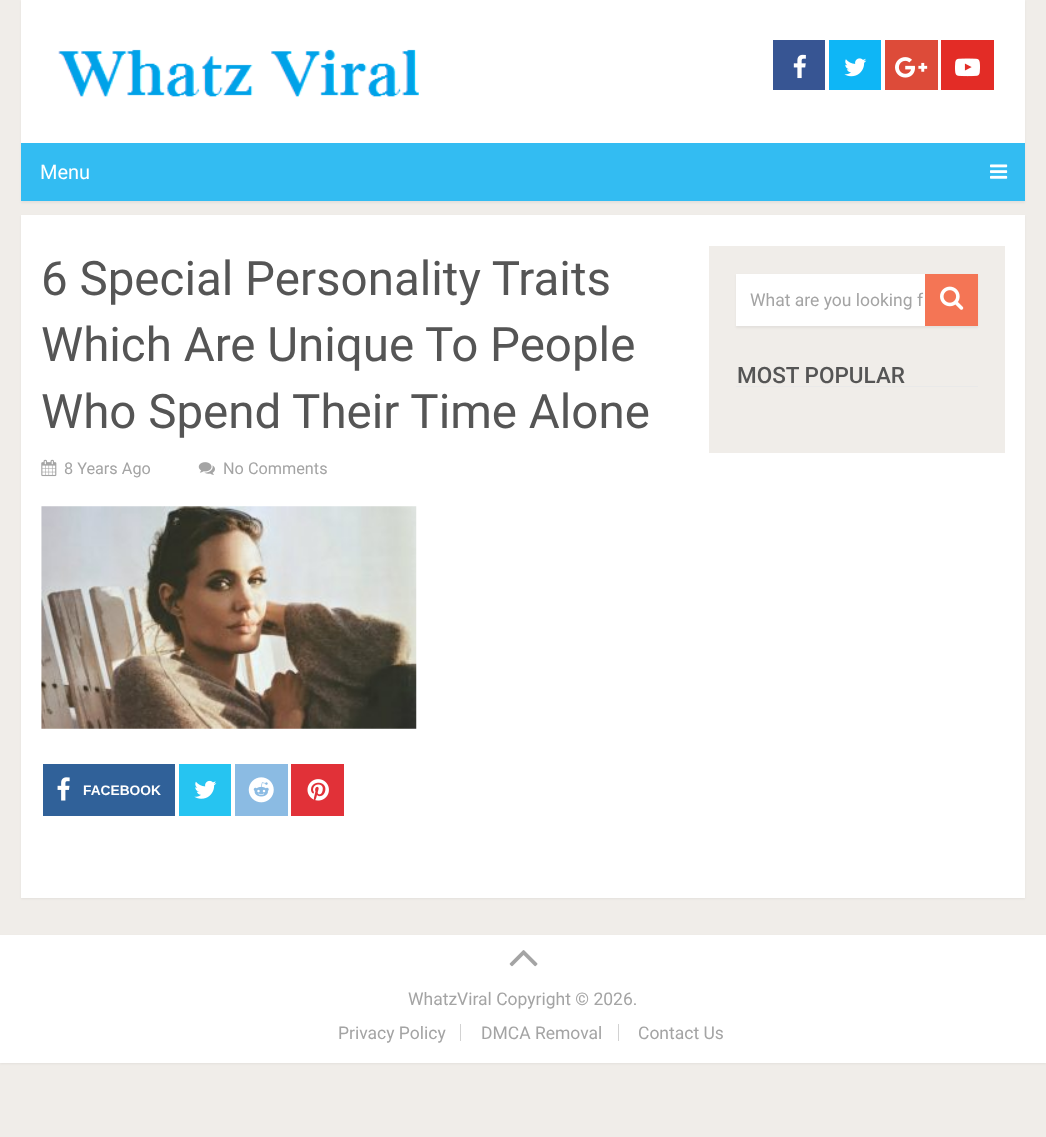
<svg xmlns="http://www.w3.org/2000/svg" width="1046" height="1137">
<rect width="100%" height="100%" fill="#f0ede9"/>
<rect x="21" y="1" width="1004" height="202" fill="#0000000d" filter="blur(1px)"/>
<rect x="21" width="1004" height="143" fill="#fff"/>
<image x="58" y="49" width="361" height="48" href="media/1.png"/>
<rect x="773" y="40" width="52" height="50" fill="#375593"/>
<image x="793" y="54" width="13" height="25" href="media/2.png"/>
<rect x="829" y="40" width="52" height="50" fill="#0eb6f6"/>
<image x="844" y="58" width="23" height="19" href="media/3.png"/>
<rect x="885" y="40" width="53" height="50" fill="#dd4b39"/>
<image x="895" y="57" width="33" height="21" href="media/4.png"/>
<rect x="941" y="40" width="53" height="50" fill="#e32c26"/>
<image x="955" y="58" width="25" height="19" href="media/5.png"/>
<rect x="21" y="143" width="1004" height="58" fill="#33bcf2"/>
<text x="40" y="179" style="font-family:Roboto;font-size:20px;fill:#fff">Menu</text>
<image x="990" y="164" width="18" height="15" href="media/6.png"/>
<rect x="21" y="216" width="1004" height="683" fill="#0000000d" filter="blur(1px)"/>
<rect x="21" y="215" width="1004" height="683" fill="#fff"/>
<text x="41" y="295" style="font-family:Roboto;font-size:47.5px;fill:#555">6 Special Personality Traits</text>
<text x="41" y="361" style="font-family:Roboto;font-size:47.5px;fill:#555">Which Are Unique To People</text>
<text x="41" y="428" style="font-family:Roboto;font-size:47.5px;fill:#555">Who Spend Their Time Alone</text>
<image x="41" y="459" width="16" height="18" href="media/7.png"/>
<text x="64" y="474" style="font-family:Roboto;font-size:16.25px;fill:#a4a4a4">8 Years Ago</text>
<image x="198" y="462" width="17" height="13" href="media/8.png"/>
<text x="223" y="474" style="font-family:Roboto;font-size:16.25px;fill:#a4a4a4">No Comments</text>
<image x="41" y="506" width="376" height="223" href="media/9.png"/>
<rect x="43" y="764" width="132" height="52" fill="#306199"/>
<image x="57" y="777" width="13" height="24" href="media/10.png"/>
<text x="83" y="795" style="font-family:Liberation Sans;font-size:13.75px;font-weight:bold;fill:#fff">FACEBOOK</text>
<rect x="179" y="764" width="52" height="52" fill="#26c4f1"/>
<image x="194" y="780" width="23" height="19" href="media/11.png"/>
<rect x="235" y="764" width="53" height="52" fill="#8bbbe3"/>
<image x="248" y="777" width="26" height="26" href="media/12.png"/>
<rect x="291" y="764" width="53" height="52" fill="#e13138"/>
<image x="307" y="779" width="22" height="22" href="media/13.png"/>
<rect x="709" y="246" width="296" height="207" fill="#f0ede9"/>
<rect x="736" y="275" width="242" height="53" fill="#0000000d" filter="blur(1px)"/>
<rect x="736" y="274" width="189" height="52" fill="#fff"/>
<text x="750" y="306" style="font-family:Roboto;font-size:17.5px;fill:#a4a4a4">What are you looking f</text>
<rect x="925" y="274" width="53" height="52" fill="#f47555"/>
<image x="940" y="286" width="24" height="24" href="media/14.png"/>
<rect x="736" y="386" width="242" height="1" fill="#e9e9e9"/>
<text x="737" y="383" style="font-family:Roboto;font-size:22.5px;font-weight:500;fill:#555">MOST POPULAR</text>
<rect y="936" width="1046" height="128" fill="#0000000d" filter="blur(1px)"/>
<rect y="935" width="1046" height="128" fill="#fff"/>
<image x="509" y="950" width="29" height="17" href="media/15.png"/>
<text x="408" y="1005" style="font-family:Roboto;font-size:17.5px;fill:#a4a4a4">WhatzViral Copyright © 2026.</text>
<rect x="460" y="1024" width="1" height="17" fill="#d2d2d2"/>
<text x="338" y="1039" style="font-family:Roboto;font-size:17.5px;fill:#a4a4a4">Privacy Policy</text>
<rect x="618" y="1024" width="1" height="17" fill="#d2d2d2"/>
<text x="481" y="1039" style="font-family:Roboto;font-size:17.5px;fill:#a4a4a4">DMCA Removal</text>
<text x="638" y="1039" style="font-family:Roboto;font-size:17.5px;fill:#a4a4a4">Contact Us</text>
</svg>
